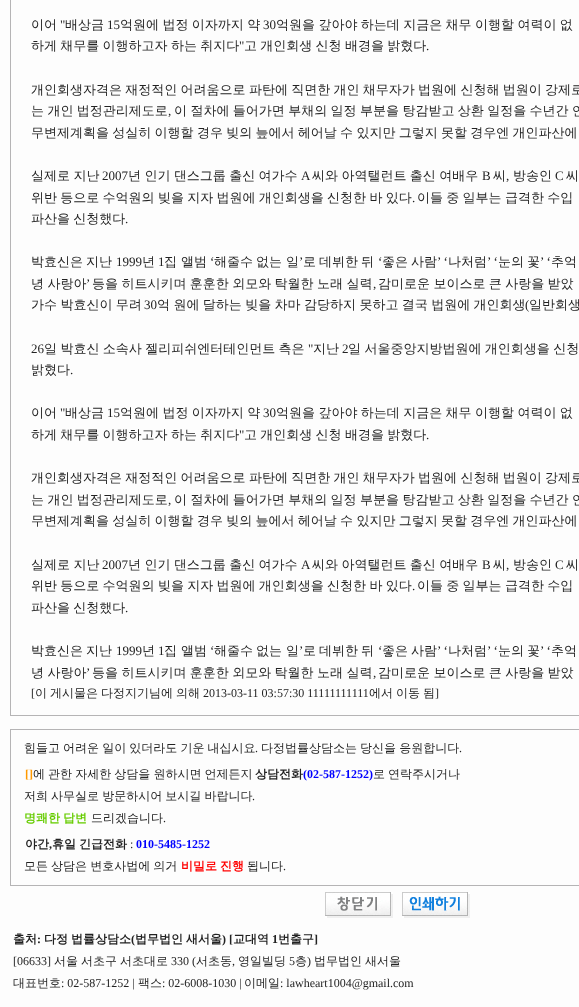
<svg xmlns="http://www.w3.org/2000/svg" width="579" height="1007">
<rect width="100%" height="100%" fill="#fdfdfd"/>
<rect x="10.5" y="-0.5" width="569" height="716" fill="none" stroke="#b5b4b5"/>
<text x="31" y="29" style="font-family:WenQuanYi Zen Hei;font-size:13px;font-weight:500;fill:#222">이어</text>
<text x="60" y="29" style="font-family:Liberation Serif;font-size:13px;fill:#222">"</text>
<text x="65" y="29" style="font-family:WenQuanYi Zen Hei;font-size:13px;font-weight:500;fill:#222">배상금</text>
<text x="107" y="29" style="font-family:Liberation Serif;font-size:13px;fill:#222">15</text>
<text x="120" y="29" word-spacing="-0.5" style="font-family:WenQuanYi Zen Hei;font-size:13px;font-weight:500;fill:#222">억원에 법정 이자까지 약</text>
<text x="263" y="29" style="font-family:Liberation Serif;font-size:13px;fill:#222">30</text>
<text x="276" y="29" word-spacing="-0.5" style="font-family:WenQuanYi Zen Hei;font-size:13px;font-weight:500;fill:#222">억원을 갚아야 하는데 지금은 채무 이행할 여력이 없</text>
<text x="31" y="50" word-spacing="-0.6" style="font-family:WenQuanYi Zen Hei;font-size:13px;font-weight:500;fill:#222">하게 채무를 이행하고자 하는 취지다</text>
<text x="239" y="50" style="font-family:Liberation Serif;font-size:13px;fill:#222">"</text>
<text x="244" y="50" word-spacing="-0.6" style="font-family:WenQuanYi Zen Hei;font-size:13px;font-weight:500;fill:#222">고 개인회생 신청 배경을 밝혔다</text>
<text x="426" y="50" style="font-family:Liberation Serif;font-size:13px;fill:#222">.</text>
<text x="31" y="94" word-spacing="-0.6" style="font-family:WenQuanYi Zen Hei;font-size:13px;font-weight:500;fill:#222">개인회생자격은 재정적인 어려움으로 파탄에 직면한 개인 채무자가 법원에 신청해 법원이 강제로</text>
<text x="31" y="115" word-spacing="-0.5" style="font-family:WenQuanYi Zen Hei;font-size:13px;font-weight:500;fill:#222">는 개인 법정관리제도로</text>
<text x="168" y="115" style="font-family:Liberation Serif;font-size:13px;fill:#222">,</text>
<text x="174" y="115" word-spacing="-0.5" style="font-family:WenQuanYi Zen Hei;font-size:13px;font-weight:500;fill:#222">이 절차에 들어가면 부채의 일정 부분을 탕감받고 상환 일정을 수년간 연</text>
<text x="31" y="137" word-spacing="-0.6" style="font-family:WenQuanYi Zen Hei;font-size:13px;font-weight:500;fill:#222">무변제계획을 성실히 이행할 경우 빚의 늪에서 헤어날 수 있지만 그렇지 못할 경우엔 개인파산에</text>
<text x="31" y="180" word-spacing="-0.5" style="font-family:WenQuanYi Zen Hei;font-size:13px;font-weight:500;fill:#222">실제로 지난</text>
<text x="102" y="180" style="font-family:Liberation Serif;font-size:13px;fill:#222">2007</text>
<text x="128" y="180" word-spacing="-0.5" style="font-family:WenQuanYi Zen Hei;font-size:13px;font-weight:500;fill:#222">년 인기 댄스그룹 출신 여가수</text>
<text x="301" y="180" style="font-family:Liberation Serif;font-size:13px;fill:#222">A</text>
<text x="312" y="180" word-spacing="-0.5" style="font-family:WenQuanYi Zen Hei;font-size:13px;font-weight:500;fill:#222">씨와 아역탤런트 출신 여배우</text>
<text x="482" y="180" style="font-family:Liberation Serif;font-size:13px;fill:#222">B</text>
<text x="493" y="180" style="font-family:WenQuanYi Zen Hei;font-size:13px;font-weight:500;fill:#222">씨</text>
<text x="506" y="180" style="font-family:Liberation Serif;font-size:13px;fill:#222">,</text>
<text x="513" y="180" style="font-family:WenQuanYi Zen Hei;font-size:13px;font-weight:500;fill:#222">방송인</text>
<text x="555" y="180" style="font-family:Liberation Serif;font-size:13px;fill:#222">C</text>
<text x="566" y="180" word-spacing="-0.5" style="font-family:WenQuanYi Zen Hei;font-size:13px;font-weight:500;fill:#222">씨</text>
<text x="31" y="202" word-spacing="-0.6" style="font-family:WenQuanYi Zen Hei;font-size:13px;font-weight:500;fill:#222">위반 등으로 수억원의 빚을 지자 법원에 개인회생을 신청한 바 있다</text>
<text x="412" y="202" style="font-family:Liberation Serif;font-size:13px;fill:#222">.</text>
<text x="417" y="202" word-spacing="-0.6" style="font-family:WenQuanYi Zen Hei;font-size:13px;font-weight:500;fill:#222">이들 중 일부는 급격한 수입</text>
<text x="31" y="223" word-spacing="-0.6" style="font-family:WenQuanYi Zen Hei;font-size:13px;font-weight:500;fill:#222">파산을 신청했다</text>
<text x="125" y="223" style="font-family:Liberation Serif;font-size:13px;fill:#222">.</text>
<text x="31" y="266" style="font-family:WenQuanYi Zen Hei;font-size:13px;font-weight:500;fill:#222">박효신은</text>
<text x="86" y="266" style="font-family:WenQuanYi Zen Hei;font-size:13px;font-weight:500;fill:#222">지난</text>
<text x="116" y="266" style="font-family:Liberation Serif;font-size:13px;fill:#222">1999</text>
<text x="142" y="266" style="font-family:WenQuanYi Zen Hei;font-size:13px;font-weight:500;fill:#222">년</text>
<text x="158" y="266" style="font-family:Liberation Serif;font-size:13px;fill:#222">1</text>
<text x="164" y="266" style="font-family:WenQuanYi Zen Hei;font-size:13px;font-weight:500;fill:#222">집</text>
<text x="181" y="266" style="font-family:WenQuanYi Zen Hei;font-size:13px;font-weight:500;fill:#222">앨범</text>
<text x="210" y="266" style="font-family:Liberation Serif;font-size:13px;fill:#222">‘</text>
<text x="214" y="266" style="font-family:WenQuanYi Zen Hei;font-size:13px;font-weight:500;fill:#222">해줄수</text>
<text x="256" y="266" style="font-family:WenQuanYi Zen Hei;font-size:13px;font-weight:500;fill:#222">없는</text>
<text x="286" y="266" style="font-family:WenQuanYi Zen Hei;font-size:13px;font-weight:500;fill:#222">일</text>
<text x="299" y="266" style="font-family:Liberation Serif;font-size:13px;fill:#222">’</text>
<text x="303" y="266" style="font-family:WenQuanYi Zen Hei;font-size:13px;font-weight:500;fill:#222">로</text>
<text x="319" y="266" style="font-family:WenQuanYi Zen Hei;font-size:13px;font-weight:500;fill:#222">데뷔한</text>
<text x="361" y="266" style="font-family:WenQuanYi Zen Hei;font-size:13px;font-weight:500;fill:#222">뒤</text>
<text x="378" y="266" style="font-family:Liberation Serif;font-size:13px;fill:#222">‘</text>
<text x="382" y="266" style="font-family:WenQuanYi Zen Hei;font-size:13px;font-weight:500;fill:#222">좋은</text>
<text x="411" y="266" style="font-family:WenQuanYi Zen Hei;font-size:13px;font-weight:500;fill:#222">사람</text>
<text x="437" y="266" style="font-family:Liberation Serif;font-size:13px;fill:#222">’ ‘</text>
<text x="448" y="266" style="font-family:WenQuanYi Zen Hei;font-size:13px;font-weight:500;fill:#222">나처럼</text>
<text x="487" y="266" style="font-family:Liberation Serif;font-size:13px;fill:#222">’ ‘</text>
<text x="498" y="266" style="font-family:WenQuanYi Zen Hei;font-size:13px;font-weight:500;fill:#222">눈의</text>
<text x="527" y="266" style="font-family:WenQuanYi Zen Hei;font-size:13px;font-weight:500;fill:#222">꽃</text>
<text x="540" y="266" style="font-family:Liberation Serif;font-size:13px;fill:#222">’ ‘</text>
<text x="551" y="266" style="font-family:WenQuanYi Zen Hei;font-size:13px;font-weight:500;fill:#222">추억</text>
<text x="31" y="288" word-spacing="-0.5" style="font-family:WenQuanYi Zen Hei;font-size:13px;font-weight:500;fill:#222">녕 사랑아</text>
<text x="86" y="288" style="font-family:Liberation Serif;font-size:13px;fill:#222">’</text>
<text x="92" y="288" word-spacing="-0.5" style="font-family:WenQuanYi Zen Hei;font-size:13px;font-weight:500;fill:#222">등을 히트시키며 훈훈한 외모와 탁월한 노래 실력</text>
<text x="378" y="288" word-spacing="-0.5" style="font-family:WenQuanYi Zen Hei;font-size:13px;font-weight:500;fill:#222">감미로운 보이스로 큰 사랑을 받았</text>
<text x="373" y="288" style="font-family:Liberation Serif;font-size:13px;fill:#222">,</text>
<text x="31" y="309" word-spacing="-0.5" style="font-family:WenQuanYi Zen Hei;font-size:13px;font-weight:500;fill:#222">가수 박효신이 무려</text>
<text x="144" y="309" style="font-family:Liberation Serif;font-size:13px;fill:#222">30</text>
<text x="157" y="309" word-spacing="-0.5" style="font-family:WenQuanYi Zen Hei;font-size:13px;font-weight:500;fill:#222">억 원에 달하는 빚을 차마 감당하지 못하고 결국 법원에 개인회생</text>
<text x="525" y="309" style="font-family:Liberation Serif;font-size:13px;fill:#222">(</text>
<text x="529" y="309" style="font-family:WenQuanYi Zen Hei;font-size:13px;font-weight:500;fill:#222">일반회생</text>
<text x="31" y="353" style="font-family:Liberation Serif;font-size:13px;fill:#222">26</text>
<text x="44" y="353" word-spacing="-0.5" style="font-family:WenQuanYi Zen Hei;font-size:13px;font-weight:500;fill:#222">일 박효신 소속사 젤리피쉬엔터테인먼트 측은</text>
<text x="308" y="353" style="font-family:Liberation Serif;font-size:13px;fill:#222">"</text>
<text x="313" y="353" style="font-family:WenQuanYi Zen Hei;font-size:13px;font-weight:500;fill:#222">지난</text>
<text x="342" y="353" style="font-family:Liberation Serif;font-size:13px;fill:#222">2</text>
<text x="348" y="353" word-spacing="-0.5" style="font-family:WenQuanYi Zen Hei;font-size:13px;font-weight:500;fill:#222">일 서울중앙지방법원에 개인회생을 신청</text>
<text x="31" y="374" style="font-family:WenQuanYi Zen Hei;font-size:13px;font-weight:500;fill:#222">밝혔다</text>
<text x="70" y="374" style="font-family:Liberation Serif;font-size:13px;fill:#222">.</text>
<text x="31" y="417" style="font-family:WenQuanYi Zen Hei;font-size:13px;font-weight:500;fill:#222">이어</text>
<text x="60" y="417" style="font-family:Liberation Serif;font-size:13px;fill:#222">"</text>
<text x="65" y="417" style="font-family:WenQuanYi Zen Hei;font-size:13px;font-weight:500;fill:#222">배상금</text>
<text x="107" y="417" style="font-family:Liberation Serif;font-size:13px;fill:#222">15</text>
<text x="120" y="417" word-spacing="-0.5" style="font-family:WenQuanYi Zen Hei;font-size:13px;font-weight:500;fill:#222">억원에 법정 이자까지 약</text>
<text x="263" y="417" style="font-family:Liberation Serif;font-size:13px;fill:#222">30</text>
<text x="276" y="417" word-spacing="-0.5" style="font-family:WenQuanYi Zen Hei;font-size:13px;font-weight:500;fill:#222">억원을 갚아야 하는데 지금은 채무 이행할 여력이 없</text>
<text x="31" y="439" word-spacing="-0.6" style="font-family:WenQuanYi Zen Hei;font-size:13px;font-weight:500;fill:#222">하게 채무를 이행하고자 하는 취지다</text>
<text x="239" y="439" style="font-family:Liberation Serif;font-size:13px;fill:#222">"</text>
<text x="244" y="439" word-spacing="-0.6" style="font-family:WenQuanYi Zen Hei;font-size:13px;font-weight:500;fill:#222">고 개인회생 신청 배경을 밝혔다</text>
<text x="426" y="439" style="font-family:Liberation Serif;font-size:13px;fill:#222">.</text>
<text x="31" y="482" word-spacing="-0.6" style="font-family:WenQuanYi Zen Hei;font-size:13px;font-weight:500;fill:#222">개인회생자격은 재정적인 어려움으로 파탄에 직면한 개인 채무자가 법원에 신청해 법원이 강제로</text>
<text x="31" y="504" word-spacing="-0.5" style="font-family:WenQuanYi Zen Hei;font-size:13px;font-weight:500;fill:#222">는 개인 법정관리제도로</text>
<text x="168" y="504" style="font-family:Liberation Serif;font-size:13px;fill:#222">,</text>
<text x="174" y="504" word-spacing="-0.5" style="font-family:WenQuanYi Zen Hei;font-size:13px;font-weight:500;fill:#222">이 절차에 들어가면 부채의 일정 부분을 탕감받고 상환 일정을 수년간 연</text>
<text x="31" y="525" word-spacing="-0.6" style="font-family:WenQuanYi Zen Hei;font-size:13px;font-weight:500;fill:#222">무변제계획을 성실히 이행할 경우 빚의 늪에서 헤어날 수 있지만 그렇지 못할 경우엔 개인파산에</text>
<text x="31" y="569" word-spacing="-0.5" style="font-family:WenQuanYi Zen Hei;font-size:13px;font-weight:500;fill:#222">실제로 지난</text>
<text x="102" y="569" style="font-family:Liberation Serif;font-size:13px;fill:#222">2007</text>
<text x="128" y="569" word-spacing="-0.5" style="font-family:WenQuanYi Zen Hei;font-size:13px;font-weight:500;fill:#222">년 인기 댄스그룹 출신 여가수</text>
<text x="301" y="569" style="font-family:Liberation Serif;font-size:13px;fill:#222">A</text>
<text x="312" y="569" word-spacing="-0.5" style="font-family:WenQuanYi Zen Hei;font-size:13px;font-weight:500;fill:#222">씨와 아역탤런트 출신 여배우</text>
<text x="482" y="569" style="font-family:Liberation Serif;font-size:13px;fill:#222">B</text>
<text x="493" y="569" style="font-family:WenQuanYi Zen Hei;font-size:13px;font-weight:500;fill:#222">씨</text>
<text x="506" y="569" style="font-family:Liberation Serif;font-size:13px;fill:#222">,</text>
<text x="513" y="569" style="font-family:WenQuanYi Zen Hei;font-size:13px;font-weight:500;fill:#222">방송인</text>
<text x="555" y="569" style="font-family:Liberation Serif;font-size:13px;fill:#222">C</text>
<text x="566" y="569" word-spacing="-0.5" style="font-family:WenQuanYi Zen Hei;font-size:13px;font-weight:500;fill:#222">씨</text>
<text x="31" y="590" word-spacing="-0.6" style="font-family:WenQuanYi Zen Hei;font-size:13px;font-weight:500;fill:#222">위반 등으로 수억원의 빚을 지자 법원에 개인회생을 신청한 바 있다</text>
<text x="412" y="590" style="font-family:Liberation Serif;font-size:13px;fill:#222">.</text>
<text x="417" y="590" word-spacing="-0.6" style="font-family:WenQuanYi Zen Hei;font-size:13px;font-weight:500;fill:#222">이들 중 일부는 급격한 수입</text>
<text x="31" y="612" word-spacing="-0.6" style="font-family:WenQuanYi Zen Hei;font-size:13px;font-weight:500;fill:#222">파산을 신청했다</text>
<text x="125" y="612" style="font-family:Liberation Serif;font-size:13px;fill:#222">.</text>
<text x="31" y="655" style="font-family:WenQuanYi Zen Hei;font-size:13px;font-weight:500;fill:#222">박효신은</text>
<text x="86" y="655" style="font-family:WenQuanYi Zen Hei;font-size:13px;font-weight:500;fill:#222">지난</text>
<text x="116" y="655" style="font-family:Liberation Serif;font-size:13px;fill:#222">1999</text>
<text x="142" y="655" style="font-family:WenQuanYi Zen Hei;font-size:13px;font-weight:500;fill:#222">년</text>
<text x="158" y="655" style="font-family:Liberation Serif;font-size:13px;fill:#222">1</text>
<text x="164" y="655" style="font-family:WenQuanYi Zen Hei;font-size:13px;font-weight:500;fill:#222">집</text>
<text x="181" y="655" style="font-family:WenQuanYi Zen Hei;font-size:13px;font-weight:500;fill:#222">앨범</text>
<text x="210" y="655" style="font-family:Liberation Serif;font-size:13px;fill:#222">‘</text>
<text x="214" y="655" style="font-family:WenQuanYi Zen Hei;font-size:13px;font-weight:500;fill:#222">해줄수</text>
<text x="256" y="655" style="font-family:WenQuanYi Zen Hei;font-size:13px;font-weight:500;fill:#222">없는</text>
<text x="286" y="655" style="font-family:WenQuanYi Zen Hei;font-size:13px;font-weight:500;fill:#222">일</text>
<text x="299" y="655" style="font-family:Liberation Serif;font-size:13px;fill:#222">’</text>
<text x="303" y="655" style="font-family:WenQuanYi Zen Hei;font-size:13px;font-weight:500;fill:#222">로</text>
<text x="319" y="655" style="font-family:WenQuanYi Zen Hei;font-size:13px;font-weight:500;fill:#222">데뷔한</text>
<text x="361" y="655" style="font-family:WenQuanYi Zen Hei;font-size:13px;font-weight:500;fill:#222">뒤</text>
<text x="378" y="655" style="font-family:Liberation Serif;font-size:13px;fill:#222">‘</text>
<text x="382" y="655" style="font-family:WenQuanYi Zen Hei;font-size:13px;font-weight:500;fill:#222">좋은</text>
<text x="411" y="655" style="font-family:WenQuanYi Zen Hei;font-size:13px;font-weight:500;fill:#222">사람</text>
<text x="437" y="655" style="font-family:Liberation Serif;font-size:13px;fill:#222">’ ‘</text>
<text x="448" y="655" style="font-family:WenQuanYi Zen Hei;font-size:13px;font-weight:500;fill:#222">나처럼</text>
<text x="487" y="655" style="font-family:Liberation Serif;font-size:13px;fill:#222">’ ‘</text>
<text x="498" y="655" style="font-family:WenQuanYi Zen Hei;font-size:13px;font-weight:500;fill:#222">눈의</text>
<text x="527" y="655" style="font-family:WenQuanYi Zen Hei;font-size:13px;font-weight:500;fill:#222">꽃</text>
<text x="540" y="655" style="font-family:Liberation Serif;font-size:13px;fill:#222">’ ‘</text>
<text x="551" y="655" style="font-family:WenQuanYi Zen Hei;font-size:13px;font-weight:500;fill:#222">추억</text>
<text x="31" y="677" word-spacing="-0.5" style="font-family:WenQuanYi Zen Hei;font-size:13px;font-weight:500;fill:#222">녕 사랑아</text>
<text x="86" y="677" style="font-family:Liberation Serif;font-size:13px;fill:#222">’</text>
<text x="92" y="677" word-spacing="-0.5" style="font-family:WenQuanYi Zen Hei;font-size:13px;font-weight:500;fill:#222">등을 히트시키며 훈훈한 외모와 탁월한 노래 실력</text>
<text x="378" y="677" word-spacing="-0.5" style="font-family:WenQuanYi Zen Hei;font-size:13px;font-weight:500;fill:#222">감미로운 보이스로 큰 사랑을 받았</text>
<text x="373" y="677" style="font-family:Liberation Serif;font-size:13px;fill:#222">,</text>
<text x="31" y="697" style="font-family:Liberation Serif;font-size:12px;fill:#222">[</text>
<text x="35" y="697" style="font-family:WenQuanYi Zen Hei;font-size:12px;font-weight:500;fill:#222">이</text>
<text x="50" y="697" style="font-family:WenQuanYi Zen Hei;font-size:12px;font-weight:500;fill:#222">게시물은</text>
<text x="101" y="697" style="font-family:WenQuanYi Zen Hei;font-size:12px;font-weight:500;fill:#222">다정지기님에</text>
<text x="176" y="697" style="font-family:WenQuanYi Zen Hei;font-size:12px;font-weight:500;fill:#222">의해</text>
<text x="203" y="697" style="font-family:Liberation Serif;font-size:12px;fill:#222">2013-03-11 03:57:30 11111111111</text>
<text x="369" y="697" style="font-family:WenQuanYi Zen Hei;font-size:12px;font-weight:500;fill:#222">에서</text>
<text x="396" y="697" style="font-family:WenQuanYi Zen Hei;font-size:12px;font-weight:500;fill:#222">이동</text>
<text x="423" y="697" style="font-family:WenQuanYi Zen Hei;font-size:12px;font-weight:500;fill:#222">됨</text>
<text x="435" y="697" style="font-family:Liberation Serif;font-size:12px;fill:#222">]</text>
<rect x="10.5" y="729.5" width="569" height="156" fill="none" stroke="#b5b4b5"/>
<text x="24" y="752" word-spacing="-0.5" style="font-family:WenQuanYi Zen Hei;font-size:12px;font-weight:500;fill:#222">힘들고 어려운 일이 있더라도 기운 내십시요</text>
<text x="255" y="752" style="font-family:Liberation Serif;font-size:12px;fill:#222">.</text>
<text x="261" y="752" word-spacing="-0.5" style="font-family:WenQuanYi Zen Hei;font-size:12px;font-weight:500;fill:#222">다정법률상담소는 당신을 응원합니다</text>
<text x="459" y="752" style="font-family:Liberation Serif;font-size:12px;fill:#222">.</text>
<text x="25" y="778" style="font-family:Liberation Serif;font-size:12px;font-weight:bold;fill:#f90">[]</text>
<text x="33" y="778" word-spacing="-0.5" style="font-family:WenQuanYi Zen Hei;font-size:12px;font-weight:500;fill:#222">에 관한 자세한 상담을 원하시면 언제든지</text>
<text x="255" y="778" style="font-family:WenQuanYi Zen Hei;font-size:12px;font-weight:bold;fill:#222">상담전화</text>
<text x="303" y="778" style="font-family:Liberation Serif;font-size:12px;font-weight:bold;fill:#00f">(02-587-1252)</text>
<text x="373" y="778" word-spacing="-0.5" style="font-family:WenQuanYi Zen Hei;font-size:12px;font-weight:500;fill:#222">로 연락주시거나</text>
<text x="24" y="800" word-spacing="-0.5" style="font-family:WenQuanYi Zen Hei;font-size:12px;font-weight:500;fill:#222">저희 사무실로 방문하시어 보시길 바랍니다</text>
<text x="252" y="800" style="font-family:Liberation Serif;font-size:12px;fill:#222">.</text>
<text x="24" y="822" word-spacing="-0.5" style="font-family:WenQuanYi Zen Hei;font-size:12px;font-weight:bold;fill:#6c0">명쾌한 답변</text>
<text x="91" y="822" style="font-family:WenQuanYi Zen Hei;font-size:12px;font-weight:500;fill:#222">드리겠습니다</text>
<text x="163" y="822" style="font-family:Liberation Serif;font-size:12px;fill:#222">.</text>
<text x="25" y="848" style="font-family:WenQuanYi Zen Hei;font-size:12px;font-weight:bold;fill:#222">야간</text>
<text x="49" y="848" style="font-family:Liberation Serif;font-size:12px;font-weight:bold;fill:#222">,</text>
<text x="52" y="848" word-spacing="-0.5" style="font-family:WenQuanYi Zen Hei;font-size:12px;font-weight:bold;fill:#222">휴일 긴급전화</text>
<text x="130" y="848" style="font-family:Liberation Serif;font-size:12px;fill:#222">:</text>
<text x="136" y="848" style="font-family:Liberation Serif;font-size:12px;font-weight:bold;fill:#00f">010-5485-1252</text>
<text x="24" y="870" word-spacing="-0.5" style="font-family:WenQuanYi Zen Hei;font-size:12px;font-weight:500;fill:#222">모든 상담은 변호사법에 의거</text>
<text x="181" y="870" word-spacing="-0.5" style="font-family:WenQuanYi Zen Hei;font-size:12px;font-weight:bold;fill:#f00">비밀로 진행</text>
<text x="247" y="870" style="font-family:WenQuanYi Zen Hei;font-size:12px;font-weight:500;fill:#222">됩니다</text>
<text x="283" y="870" style="font-family:Liberation Serif;font-size:12px;fill:#222">.</text>
<image x="325" y="892" width="68" height="26" href="media/1.png"/>
<image x="402" y="892" width="68" height="26" href="media/2.png"/>
<text x="13" y="943" style="font-family:WenQuanYi Zen Hei;font-size:12px;font-weight:bold;fill:#222">출처</text>
<text x="37" y="943" style="font-family:Liberation Serif;font-size:12px;font-weight:bold;fill:#222">:</text>
<text x="44" y="943" style="font-family:WenQuanYi Zen Hei;font-size:12px;font-weight:bold;fill:#222">다정</text>
<text x="71" y="943" style="font-family:WenQuanYi Zen Hei;font-size:12px;font-weight:bold;fill:#222">법률상담소</text>
<text x="131" y="943" style="font-family:Liberation Serif;font-size:12px;font-weight:bold;fill:#222">(</text>
<text x="135" y="943" style="font-family:WenQuanYi Zen Hei;font-size:12px;font-weight:bold;fill:#222">법무법인</text>
<text x="186" y="943" style="font-family:WenQuanYi Zen Hei;font-size:12px;font-weight:bold;fill:#222">새서울</text>
<text x="222" y="943" style="font-family:Liberation Serif;font-size:12px;font-weight:bold;fill:#222">) [</text>
<text x="233" y="943" style="font-family:WenQuanYi Zen Hei;font-size:12px;font-weight:bold;fill:#222">교대역</text>
<text x="272" y="943" style="font-family:Liberation Serif;font-size:12px;font-weight:bold;fill:#222">1</text>
<text x="278" y="943" style="font-family:WenQuanYi Zen Hei;font-size:12px;font-weight:bold;fill:#222">번출구</text>
<text x="314" y="943" style="font-family:Liberation Serif;font-size:12px;font-weight:bold;fill:#222">]</text>
<text x="13" y="965" style="font-family:Liberation Serif;font-size:12px;fill:#222">[06633]</text>
<text x="54" y="965" style="font-family:WenQuanYi Zen Hei;font-size:12px;font-weight:500;fill:#222">서울</text>
<text x="81" y="965" style="font-family:WenQuanYi Zen Hei;font-size:12px;font-weight:500;fill:#222">서초구</text>
<text x="120" y="965" style="font-family:WenQuanYi Zen Hei;font-size:12px;font-weight:500;fill:#222">서초대로</text>
<text x="171" y="965" style="font-family:Liberation Serif;font-size:12px;fill:#222">330 (</text>
<text x="196" y="965" style="font-family:WenQuanYi Zen Hei;font-size:12px;font-weight:500;fill:#222">서초동</text>
<text x="232" y="965" style="font-family:Liberation Serif;font-size:12px;fill:#222">,</text>
<text x="238" y="965" style="font-family:WenQuanYi Zen Hei;font-size:12px;font-weight:500;fill:#222">영일빌딩</text>
<text x="289" y="965" style="font-family:Liberation Serif;font-size:12px;fill:#222">5</text>
<text x="295" y="965" style="font-family:WenQuanYi Zen Hei;font-size:12px;font-weight:500;fill:#222">층</text>
<text x="307" y="965" style="font-family:Liberation Serif;font-size:12px;fill:#222">)</text>
<text x="314" y="965" style="font-family:WenQuanYi Zen Hei;font-size:12px;font-weight:500;fill:#222">법무법인</text>
<text x="365" y="965" style="font-family:WenQuanYi Zen Hei;font-size:12px;font-weight:500;fill:#222">새서울</text>
<text x="13" y="987" style="font-family:WenQuanYi Zen Hei;font-size:12px;font-weight:500;fill:#222">대표번호</text>
<text x="61" y="987" style="font-family:Liberation Serif;font-size:12px;fill:#222">: 02-587-1252 |</text>
<text x="138" y="987" style="font-family:WenQuanYi Zen Hei;font-size:12px;font-weight:500;fill:#222">팩스</text>
<text x="162" y="987" style="font-family:Liberation Serif;font-size:12px;fill:#222">: 02-6008-1030 |</text>
<text x="244" y="987" style="font-family:WenQuanYi Zen Hei;font-size:12px;font-weight:500;fill:#222">이메일</text>
<text x="280" y="987" style="font-family:Liberation Serif;font-size:12px;fill:#222">: lawheart1004@gmail.com</text>
</svg>
